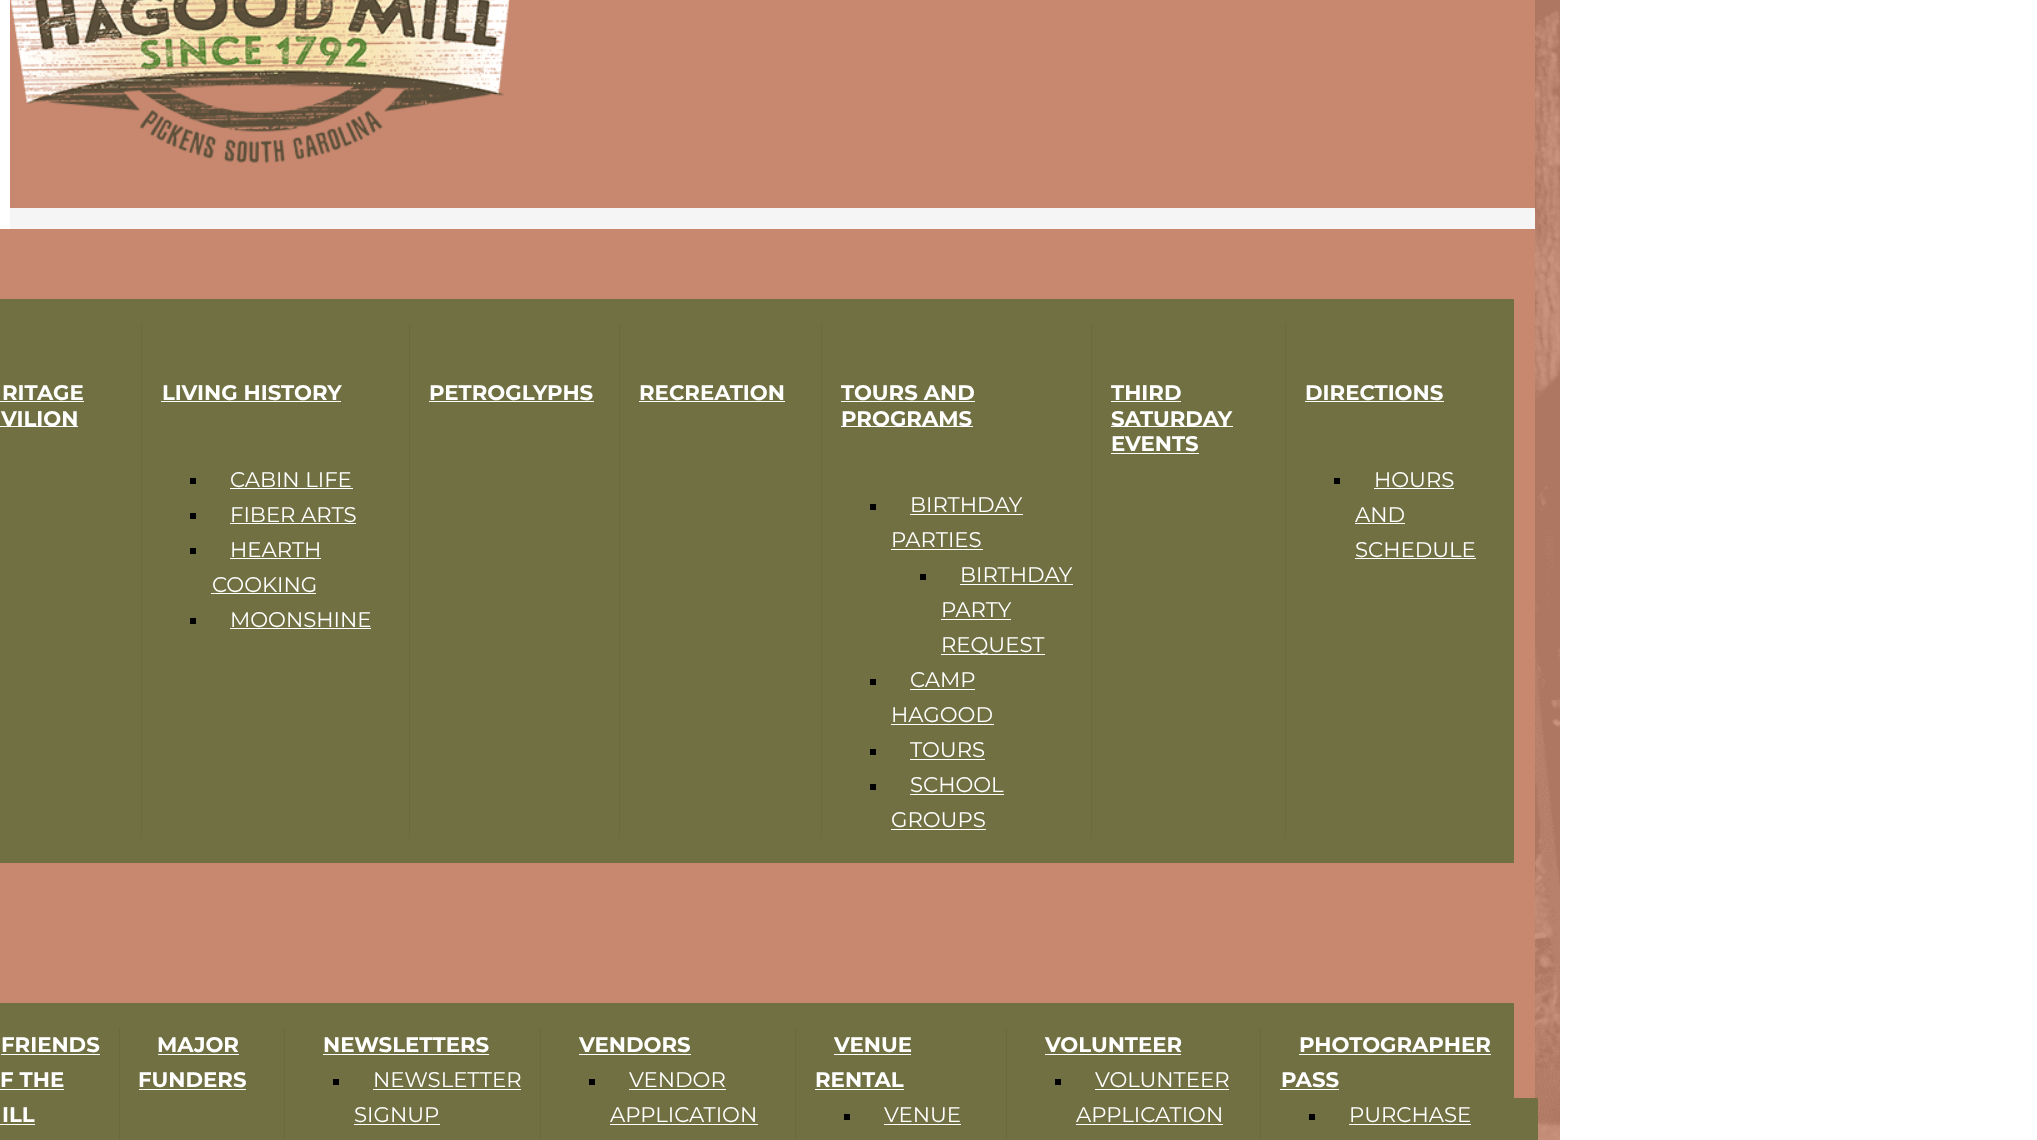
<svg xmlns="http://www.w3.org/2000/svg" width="2037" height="1140">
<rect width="100%" height="100%" fill="#fff"/>
<rect x="1535" width="25" height="1140" fill="#c7886f"/>
<image x="1535" y="0" width="25" height="1140" href="media/1.png"/>
<rect x="10" y="208" width="1525" height="21" fill="#f5f5f5"/>
<rect x="10" width="1525" height="208" fill="#c7886f"/>
<image x="10" y="0" width="500" height="163" href="media/2.png"/>
<rect y="229" width="1535" height="869" fill="#c7886f"/>
<rect y="299" width="1514" height="564" fill="#707043"/>
<rect x="141" y="324" width="1" height="514" fill="#6a6a40"/>
<text x="2" y="400" style="font-family:Montserrat;font-size:21.25px;font-weight:bold;fill:#fff">RITAGE</text>
<rect y="401" width="84" height="1" fill="#fff"/>
<rect y="426" width="78" height="1" fill="#fff"/>
<text x="1" y="426" style="font-family:Montserrat;font-size:21.25px;font-weight:bold;fill:#fff">VILION</text>
<rect x="409" y="324" width="1" height="514" fill="#6a6a40"/>
<text x="162" y="400" style="font-family:Montserrat;font-size:21.25px;font-weight:bold;fill:#fff">LIVING HISTORY</text>
<rect x="161" y="401" width="180" height="1" fill="#fff"/>
<rect x="190" y="478" width="6" height="6" fill="#000"/>
<text x="230" y="487" style="font-family:Montserrat;font-size:21.25px;fill:#fff">CABIN LIFE</text>
<rect x="230" y="488" width="123" height="1" fill="#fff"/>
<rect x="190" y="513" width="6" height="6" fill="#000"/>
<text x="230" y="522" style="font-family:Montserrat;font-size:21.25px;fill:#fff">FIBER ARTS</text>
<rect x="230" y="523" width="126" height="1" fill="#fff"/>
<rect x="190" y="548" width="6" height="6" fill="#000"/>
<text x="230" y="557" style="font-family:Montserrat;font-size:21.25px;fill:#fff">HEARTH</text>
<rect x="230" y="558" width="91" height="1" fill="#fff"/>
<text x="212" y="592" style="font-family:Montserrat;font-size:21.25px;fill:#fff">COOKING</text>
<rect x="211" y="593" width="105" height="1" fill="#fff"/>
<rect x="190" y="618" width="6" height="6" fill="#000"/>
<text x="230" y="627" style="font-family:Montserrat;font-size:21.25px;fill:#fff">MOONSHINE</text>
<rect x="230" y="628" width="141" height="1" fill="#fff"/>
<rect x="619" y="324" width="1" height="514" fill="#6a6a40"/>
<text x="429" y="400" style="font-family:Montserrat;font-size:21.25px;font-weight:bold;fill:#fff">PETROGLYPHS</text>
<rect x="429" y="401" width="165" height="1" fill="#fff"/>
<rect x="821" y="324" width="1" height="514" fill="#6a6a40"/>
<text x="639" y="400" style="font-family:Montserrat;font-size:21.25px;font-weight:bold;fill:#fff">RECREATION</text>
<rect x="639" y="401" width="146" height="1" fill="#fff"/>
<rect x="1091" y="324" width="1" height="514" fill="#6a6a40"/>
<text x="841" y="400" style="font-family:Montserrat;font-size:21.25px;font-weight:bold;fill:#fff">TOURS AND</text>
<rect x="841" y="401" width="134" height="1" fill="#fff"/>
<rect x="841" y="426" width="132" height="1" fill="#fff"/>
<text x="841" y="426" style="font-family:Montserrat;font-size:21.25px;font-weight:bold;fill:#fff">PROGRAMS</text>
<rect x="870" y="504" width="6" height="6" fill="#000"/>
<text x="910" y="512" style="font-family:Montserrat;font-size:21.25px;fill:#fff">BIRTHDAY</text>
<rect x="910" y="514" width="113" height="1" fill="#fff"/>
<text x="891" y="547" style="font-family:Montserrat;font-size:21.25px;fill:#fff">PARTIES</text>
<rect x="891" y="549" width="92" height="1" fill="#fff"/>
<rect x="920" y="574" width="6" height="6" fill="#000"/>
<text x="960" y="582" style="font-family:Montserrat;font-size:21.25px;fill:#fff">BIRTHDAY</text>
<rect x="960" y="584" width="113" height="1" fill="#fff"/>
<text x="941" y="617" style="font-family:Montserrat;font-size:21.25px;fill:#fff">PARTY</text>
<rect x="941" y="619" width="70" height="1" fill="#fff"/>
<rect x="941" y="654" width="104" height="1" fill="#fff"/>
<text x="941" y="652" style="font-family:Montserrat;font-size:21.25px;fill:#fff">REQUEST</text>
<rect x="870" y="679" width="6" height="6" fill="#000"/>
<text x="910" y="687" style="font-family:Montserrat;font-size:21.25px;fill:#fff">CAMP</text>
<rect x="910" y="689" width="65" height="1" fill="#fff"/>
<text x="891" y="722" style="font-family:Montserrat;font-size:21.25px;fill:#fff">HAGOOD</text>
<rect x="891" y="724" width="103" height="1" fill="#fff"/>
<rect x="870" y="749" width="6" height="6" fill="#000"/>
<text x="910" y="757" style="font-family:Montserrat;font-size:21.25px;fill:#fff">TOURS</text>
<rect x="910" y="759" width="75" height="1" fill="#fff"/>
<rect x="870" y="784" width="6" height="6" fill="#000"/>
<text x="910" y="792" style="font-family:Montserrat;font-size:21.25px;fill:#fff">SCHOOL</text>
<rect x="910" y="794" width="94" height="1" fill="#fff"/>
<text x="891" y="827" style="font-family:Montserrat;font-size:21.25px;fill:#fff">GROUPS</text>
<rect x="891" y="829" width="95" height="1" fill="#fff"/>
<rect x="1285" y="324" width="1" height="514" fill="#6a6a40"/>
<text x="1111" y="400" style="font-family:Montserrat;font-size:21.25px;font-weight:bold;fill:#fff">THIRD</text>
<rect x="1111" y="401" width="70" height="1" fill="#fff"/>
<rect x="1111" y="426" width="122" height="1" fill="#fff"/>
<text x="1111" y="426" style="font-family:Montserrat;font-size:21.25px;font-weight:bold;fill:#fff">SATURDAY</text>
<text x="1111" y="451" style="font-family:Montserrat;font-size:21.25px;font-weight:bold;fill:#fff">EVENTS</text>
<rect x="1111" y="453" width="88" height="1" fill="#fff"/>
<text x="1305" y="400" style="font-family:Montserrat;font-size:21.25px;font-weight:bold;fill:#fff">DIRECTIONS</text>
<rect x="1305" y="401" width="139" height="1" fill="#fff"/>
<rect x="1334" y="478" width="6" height="6" fill="#000"/>
<text x="1374" y="487" style="font-family:Montserrat;font-size:21.25px;fill:#fff">HOURS</text>
<rect x="1374" y="488" width="80" height="1" fill="#fff"/>
<text x="1355" y="522" style="font-family:Montserrat;font-size:21.25px;fill:#fff">AND</text>
<rect x="1355" y="523" width="50" height="1" fill="#fff"/>
<text x="1355" y="557" style="font-family:Montserrat;font-size:21.25px;fill:#fff">SCHEDULE</text>
<rect x="1355" y="558" width="121" height="1" fill="#fff"/>
<rect y="1003" width="1514" height="137" fill="#707043"/>
<rect x="119" y="1028" width="1" height="112" fill="#6a6a40"/>
<text x="1" y="1052" style="font-family:Montserrat;font-size:21.25px;font-weight:bold;fill:#fff">FRIENDS</text>
<rect x="1" y="1054" width="99" height="1" fill="#fff"/>
<text x="0" y="1087" style="font-family:Montserrat;font-size:21.25px;font-weight:bold;fill:#fff">F THE</text>
<rect y="1089" width="64" height="1" fill="#fff"/>
<text x="2" y="1122" style="font-family:Montserrat;font-size:21.25px;font-weight:bold;fill:#fff">ILL</text>
<rect y="1124" width="35" height="1" fill="#fff"/>
<rect x="284" y="1028" width="1" height="112" fill="#6a6a40"/>
<text x="157" y="1052" style="font-family:Montserrat;font-size:21.25px;font-weight:bold;fill:#fff">MAJOR</text>
<rect x="158" y="1054" width="81" height="1" fill="#fff"/>
<text x="138" y="1087" style="font-family:Montserrat;font-size:21.25px;font-weight:bold;fill:#fff">FUNDERS</text>
<rect x="139" y="1089" width="107" height="1" fill="#fff"/>
<rect x="540" y="1028" width="1" height="112" fill="#6a6a40"/>
<text x="323" y="1052" style="font-family:Montserrat;font-size:21.25px;font-weight:bold;fill:#fff">NEWSLETTERS</text>
<rect x="323" y="1054" width="166" height="1" fill="#fff"/>
<rect x="333" y="1079" width="6" height="6" fill="#000"/>
<text x="373" y="1087" style="font-family:Montserrat;font-size:21.25px;fill:#fff">NEWSLETTER</text>
<rect x="373" y="1089" width="148" height="1" fill="#fff"/>
<text x="354" y="1122" style="font-family:Montserrat;font-size:21.25px;fill:#fff">SIGNUP</text>
<rect x="354" y="1124" width="86" height="1" fill="#fff"/>
<rect x="795" y="1028" width="1" height="112" fill="#6a6a40"/>
<text x="579" y="1052" style="font-family:Montserrat;font-size:21.25px;font-weight:bold;fill:#fff">VENDORS</text>
<rect x="579" y="1054" width="112" height="1" fill="#fff"/>
<rect x="589" y="1079" width="6" height="6" fill="#000"/>
<text x="629" y="1087" style="font-family:Montserrat;font-size:21.25px;fill:#fff">VENDOR</text>
<rect x="629" y="1089" width="97" height="1" fill="#fff"/>
<text x="610" y="1122" style="font-family:Montserrat;font-size:21.25px;fill:#fff">APPLICATION</text>
<rect x="610" y="1124" width="148" height="1" fill="#fff"/>
<rect x="1006" y="1028" width="1" height="112" fill="#6a6a40"/>
<text x="834" y="1052" style="font-family:Montserrat;font-size:21.25px;font-weight:bold;fill:#fff">VENUE</text>
<rect x="834" y="1054" width="77" height="1" fill="#fff"/>
<text x="815" y="1087" style="font-family:Montserrat;font-size:21.25px;font-weight:bold;fill:#fff">RENTAL</text>
<rect x="815" y="1089" width="89" height="1" fill="#fff"/>
<rect x="844" y="1114" width="6" height="6" fill="#000"/>
<text x="884" y="1122" style="font-family:Montserrat;font-size:21.25px;fill:#fff">VENUE</text>
<rect x="884" y="1124" width="77" height="1" fill="#fff"/>
<rect x="1260" y="1028" width="1" height="112" fill="#6a6a40"/>
<text x="1045" y="1052" style="font-family:Montserrat;font-size:21.25px;font-weight:bold;fill:#fff">VOLUNTEER</text>
<rect x="1045" y="1054" width="136" height="1" fill="#fff"/>
<rect x="1055" y="1079" width="6" height="6" fill="#000"/>
<text x="1095" y="1087" style="font-family:Montserrat;font-size:21.25px;fill:#fff">VOLUNTEER</text>
<rect x="1095" y="1089" width="134" height="1" fill="#fff"/>
<text x="1076" y="1122" style="font-family:Montserrat;font-size:21.25px;fill:#fff">APPLICATION</text>
<rect x="1076" y="1124" width="147" height="1" fill="#fff"/>
<text x="1299" y="1052" style="font-family:Montserrat;font-size:21.25px;font-weight:bold;fill:#fff">PHOTOGRAPHER</text>
<rect x="1299" y="1054" width="192" height="1" fill="#fff"/>
<text x="1281" y="1087" style="font-family:Montserrat;font-size:21.25px;font-weight:bold;fill:#fff">PASS</text>
<rect x="1280" y="1089" width="59" height="1" fill="#fff"/>
<rect x="1514" y="1098" width="24" height="42" fill="#707043"/>
<rect x="1309" y="1114" width="6" height="6" fill="#000"/>
<text x="1349" y="1122" style="font-family:Montserrat;font-size:21.25px;fill:#fff">PURCHASE</text>
<rect x="1349" y="1124" width="122" height="1" fill="#fff"/>
</svg>
